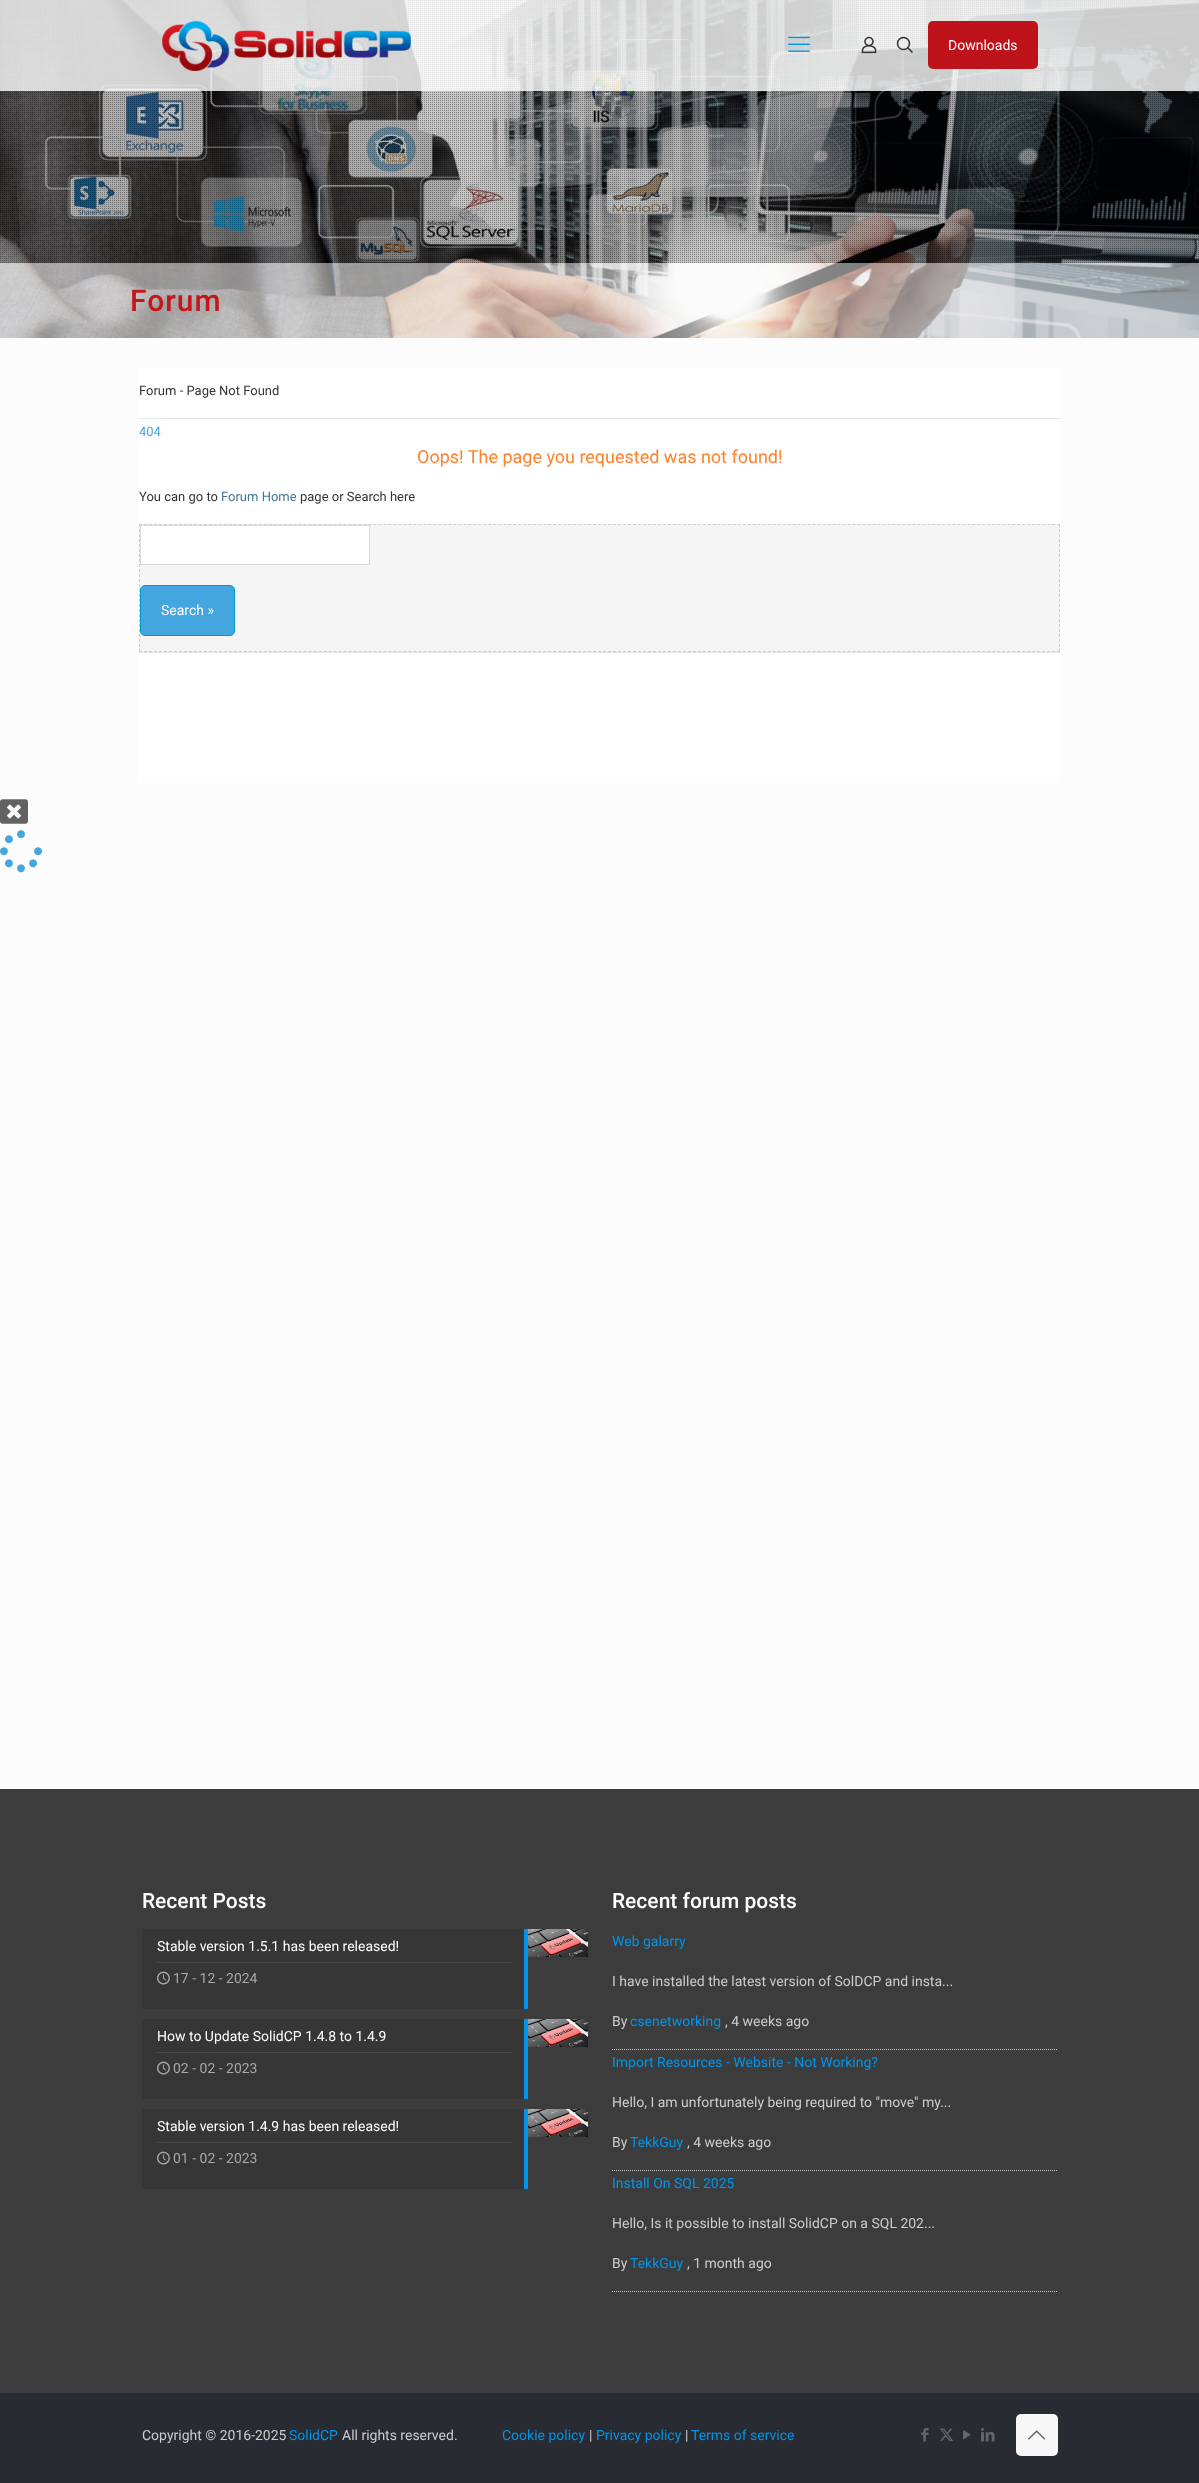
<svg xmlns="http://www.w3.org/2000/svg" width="1199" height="2483">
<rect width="100%" height="100%" fill="#fcfcfc"/>
<image x="0" y="799" width="28" height="25" href="media/1.png"/>
<image x="0" y="0" width="1199" height="338" href="media/2.png"/>
<image x="0" y="0" width="1199" height="263" href="media/3.png"/>
<rect width="1199" height="91" fill="#ffffffcc"/>
<image x="162" y="21" width="249" height="50" href="media/4.png"/>
<image x="788" y="36" width="22" height="16" href="media/5.png"/>
<image x="861" y="36" width="16" height="18" href="media/6.png"/>
<circle cx="903.5" cy="43.5" r="6" fill="none" stroke="#333" stroke-width="1.5"/>
<path d="M907.5 47.5l5 5" fill="none" stroke="#333" stroke-width="1.5"/>
<rect x="928" y="21" width="110" height="48" rx="5" fill="#be131a"/>
<text x="948" y="50" style="font-family:Roboto;font-size:14px;fill:#fff">Downloads</text>
<rect y="263" width="1199" height="75" fill="#f7f7f780"/>
<text x="130" y="311" style="font-family:Roboto;font-size:30px;font-weight:500;letter-spacing:1px;fill:#c6161d">Forum</text>
<rect x="139" y="368" width="921" height="415" fill="#fff"/>
<text x="139" y="395" style="font-family:Roboto;font-size:13px;fill:#333">Forum - Page Not Found</text>
<rect x="139" y="418" width="921" height="1" fill="#e6e6e6"/>
<rect x="139" y="652" width="921" height="1" fill="#e6e6e6"/>
<text x="139" y="436" style="font-family:Roboto;font-size:13px;fill:#43a6df">404</text>
<text x="417" y="463" style="font-family:Roboto;font-size:18px;fill:#ff812d">Oops! The page you requested was not found!</text>
<text x="139" y="501" style="font-family:Roboto;font-size:13px;fill:#333">You can go to</text>
<text x="221" y="501" style="font-family:Roboto;font-size:13px;fill:#3f7796">Forum Home</text>
<text x="300" y="501" style="font-family:Roboto;font-size:13px;fill:#333">page or Search here</text>
<rect x="139" y="524" width="921" height="128" fill="#f5f5f5"/>
<path d="M139 524.5h921" fill="none" stroke="#ccc" stroke-dasharray="3 1.99"/>
<path d="M1059.5 524v128" fill="none" stroke="#ccc" stroke-dasharray="3 2"/>
<path d="M139 651.5h921" fill="none" stroke="#ccc" stroke-dasharray="3 1.99"/>
<path d="M139.5 524v128" fill="none" stroke="#ccc" stroke-dasharray="3 2"/>
<rect x="140.5" y="525.5" width="229" height="39" fill="#fff" stroke="#dadada"/>
<rect x="140.5" y="585.5" width="94" height="50" rx="4.5" fill="#43a6df" stroke="#09c"/>
<text x="161" y="615" style="font-family:Roboto;font-size:14px;fill:#fff">Search »</text>
<rect y="2393" width="1199" height="90" fill="#292b33"/>
<rect y="1789" width="1199" height="603" fill="#3c3c3c"/>
<text x="142" y="1908" style="font-family:Roboto;font-size:21px;font-weight:500;fill:#fff">Recent Posts</text>
<rect x="142" y="1929" width="382" height="80" fill="#363636"/>
<rect x="157" y="1962" width="356" height="1" fill="#464646"/>
<text x="157" y="1951" style="font-family:Roboto;font-size:14px;fill:#fff">Stable version 1.5.1 has been released!</text>
<rect x="524" y="1929" width="4" height="80" fill="#0095eb"/>
<image x="157" y="1971" width="13" height="14" href="media/7.png"/>
<text x="173" y="1983" style="font-family:Roboto;font-size:14px;fill:#a8a8a8">17 - 12 - 2024</text>
<image x="528" y="1929" width="60" height="28" href="media/8.png"/>
<rect x="142" y="2019" width="382" height="80" fill="#363636"/>
<rect x="157" y="2052" width="356" height="1" fill="#464646"/>
<text x="157" y="2041" style="font-family:Roboto;font-size:14px;fill:#fff">How to Update SolidCP 1.4.8 to 1.4.9</text>
<rect x="524" y="2019" width="4" height="80" fill="#0095eb"/>
<image x="157" y="2061" width="13" height="14" href="media/7.png"/>
<text x="173" y="2073" style="font-family:Roboto;font-size:14px;fill:#a8a8a8">02 - 02 - 2023</text>
<image x="528" y="2019" width="60" height="28" href="media/8.png"/>
<rect x="142" y="2109" width="382" height="80" fill="#363636"/>
<rect x="157" y="2142" width="356" height="1" fill="#464646"/>
<text x="157" y="2131" style="font-family:Roboto;font-size:14px;fill:#fff">Stable version 1.4.9 has been released!</text>
<rect x="524" y="2109" width="4" height="80" fill="#0095eb"/>
<image x="157" y="2151" width="13" height="14" href="media/7.png"/>
<text x="173" y="2163" style="font-family:Roboto;font-size:14px;fill:#a8a8a8">01 - 02 - 2023</text>
<image x="528" y="2109" width="60" height="28" href="media/8.png"/>
<text x="612" y="1908" style="font-family:Roboto;font-size:21px;font-weight:500;fill:#fff">Recent forum posts</text>
<path d="M612 2049.5h446" fill="none" stroke="#ccc" stroke-dasharray="1 1"/>
<text x="612" y="1946" style="font-family:Roboto;font-size:14px;fill:#0095eb">Web galarry</text>
<text x="612" y="1986" style="font-family:Roboto;font-size:14px;fill:#ccc">I have installed the latest version of SolDCP and insta...</text>
<text x="612" y="2026" style="font-family:Roboto;font-size:14px;fill:#ccc">By</text>
<text x="630" y="2026" style="font-family:Roboto;font-size:14px;fill:#0095eb">csenetworking</text>
<text x="725" y="2026" style="font-family:Roboto;font-size:14px;fill:#ccc">, 4 weeks ago</text>
<path d="M612 2170.5h446" fill="none" stroke="#ccc" stroke-dasharray="1 1"/>
<text x="612" y="2067" style="font-family:Roboto;font-size:14px;fill:#0095eb">Import Resources - Website - Not Working?</text>
<text x="612" y="2107" style="font-family:Roboto;font-size:14px;fill:#ccc">Hello, I am unfortunately being required to "move" my...</text>
<text x="612" y="2147" style="font-family:Roboto;font-size:14px;fill:#ccc">By</text>
<text x="630" y="2147" style="font-family:Roboto;font-size:14px;fill:#0095eb">TekkGuy</text>
<text x="687" y="2147" style="font-family:Roboto;font-size:14px;fill:#ccc">, 4 weeks ago</text>
<path d="M612 2291.5h446" fill="none" stroke="#ccc" stroke-dasharray="1 1"/>
<text x="612" y="2188" style="font-family:Roboto;font-size:14px;fill:#0095eb">Install On SQL 2025</text>
<text x="612" y="2228" style="font-family:Roboto;font-size:14px;fill:#ccc">Hello, Is it possible to install SolidCP on a SQL 202...</text>
<text x="612" y="2268" style="font-family:Roboto;font-size:14px;fill:#ccc">By</text>
<text x="630" y="2268" style="font-family:Roboto;font-size:14px;fill:#0095eb">TekkGuy</text>
<text x="687" y="2268" style="font-family:Roboto;font-size:14px;fill:#ccc">, 1 month ago</text>
<rect y="2392" width="1199" height="1" fill="#3e4047"/>
<text x="142" y="2440" style="font-family:Roboto;font-size:14px;fill:#ccc">Copyright © 2016-2025</text>
<text x="289" y="2440" style="font-family:Roboto;font-size:14px;fill:#0095eb">SolidCP</text>
<text x="342" y="2440" style="font-family:Roboto;font-size:14px;fill:#ccc">All rights reserved.</text>
<text x="502" y="2440" style="font-family:Roboto;font-size:14px;fill:#0095eb">Cookie policy</text>
<text x="589" y="2440" style="font-family:Roboto;font-size:14px;fill:#ccc">|</text>
<text x="596" y="2440" style="font-family:Roboto;font-size:14px;fill:#0095eb">Privacy policy</text>
<text x="685" y="2440" style="font-family:Roboto;font-size:14px;fill:#ccc">|</text>
<text x="691" y="2440" style="font-family:Roboto;font-size:14px;fill:#0095eb">Terms of service</text>
<image x="921" y="2428" width="8" height="14" href="media/9.png"/>
<image x="940" y="2428" width="13" height="13" href="media/10.png"/>
<image x="963" y="2430" width="8" height="10" href="media/11.png"/>
<image x="981" y="2428" width="14" height="14" href="media/12.png"/>
<rect x="1016" y="2414" width="42" height="42" rx="5" fill="#f7f7f7"/>
<image x="1028" y="2430" width="18" height="10" href="media/13.png"/>
<image x="0" y="830" width="42" height="43" href="media/14.png"/>
</svg>
